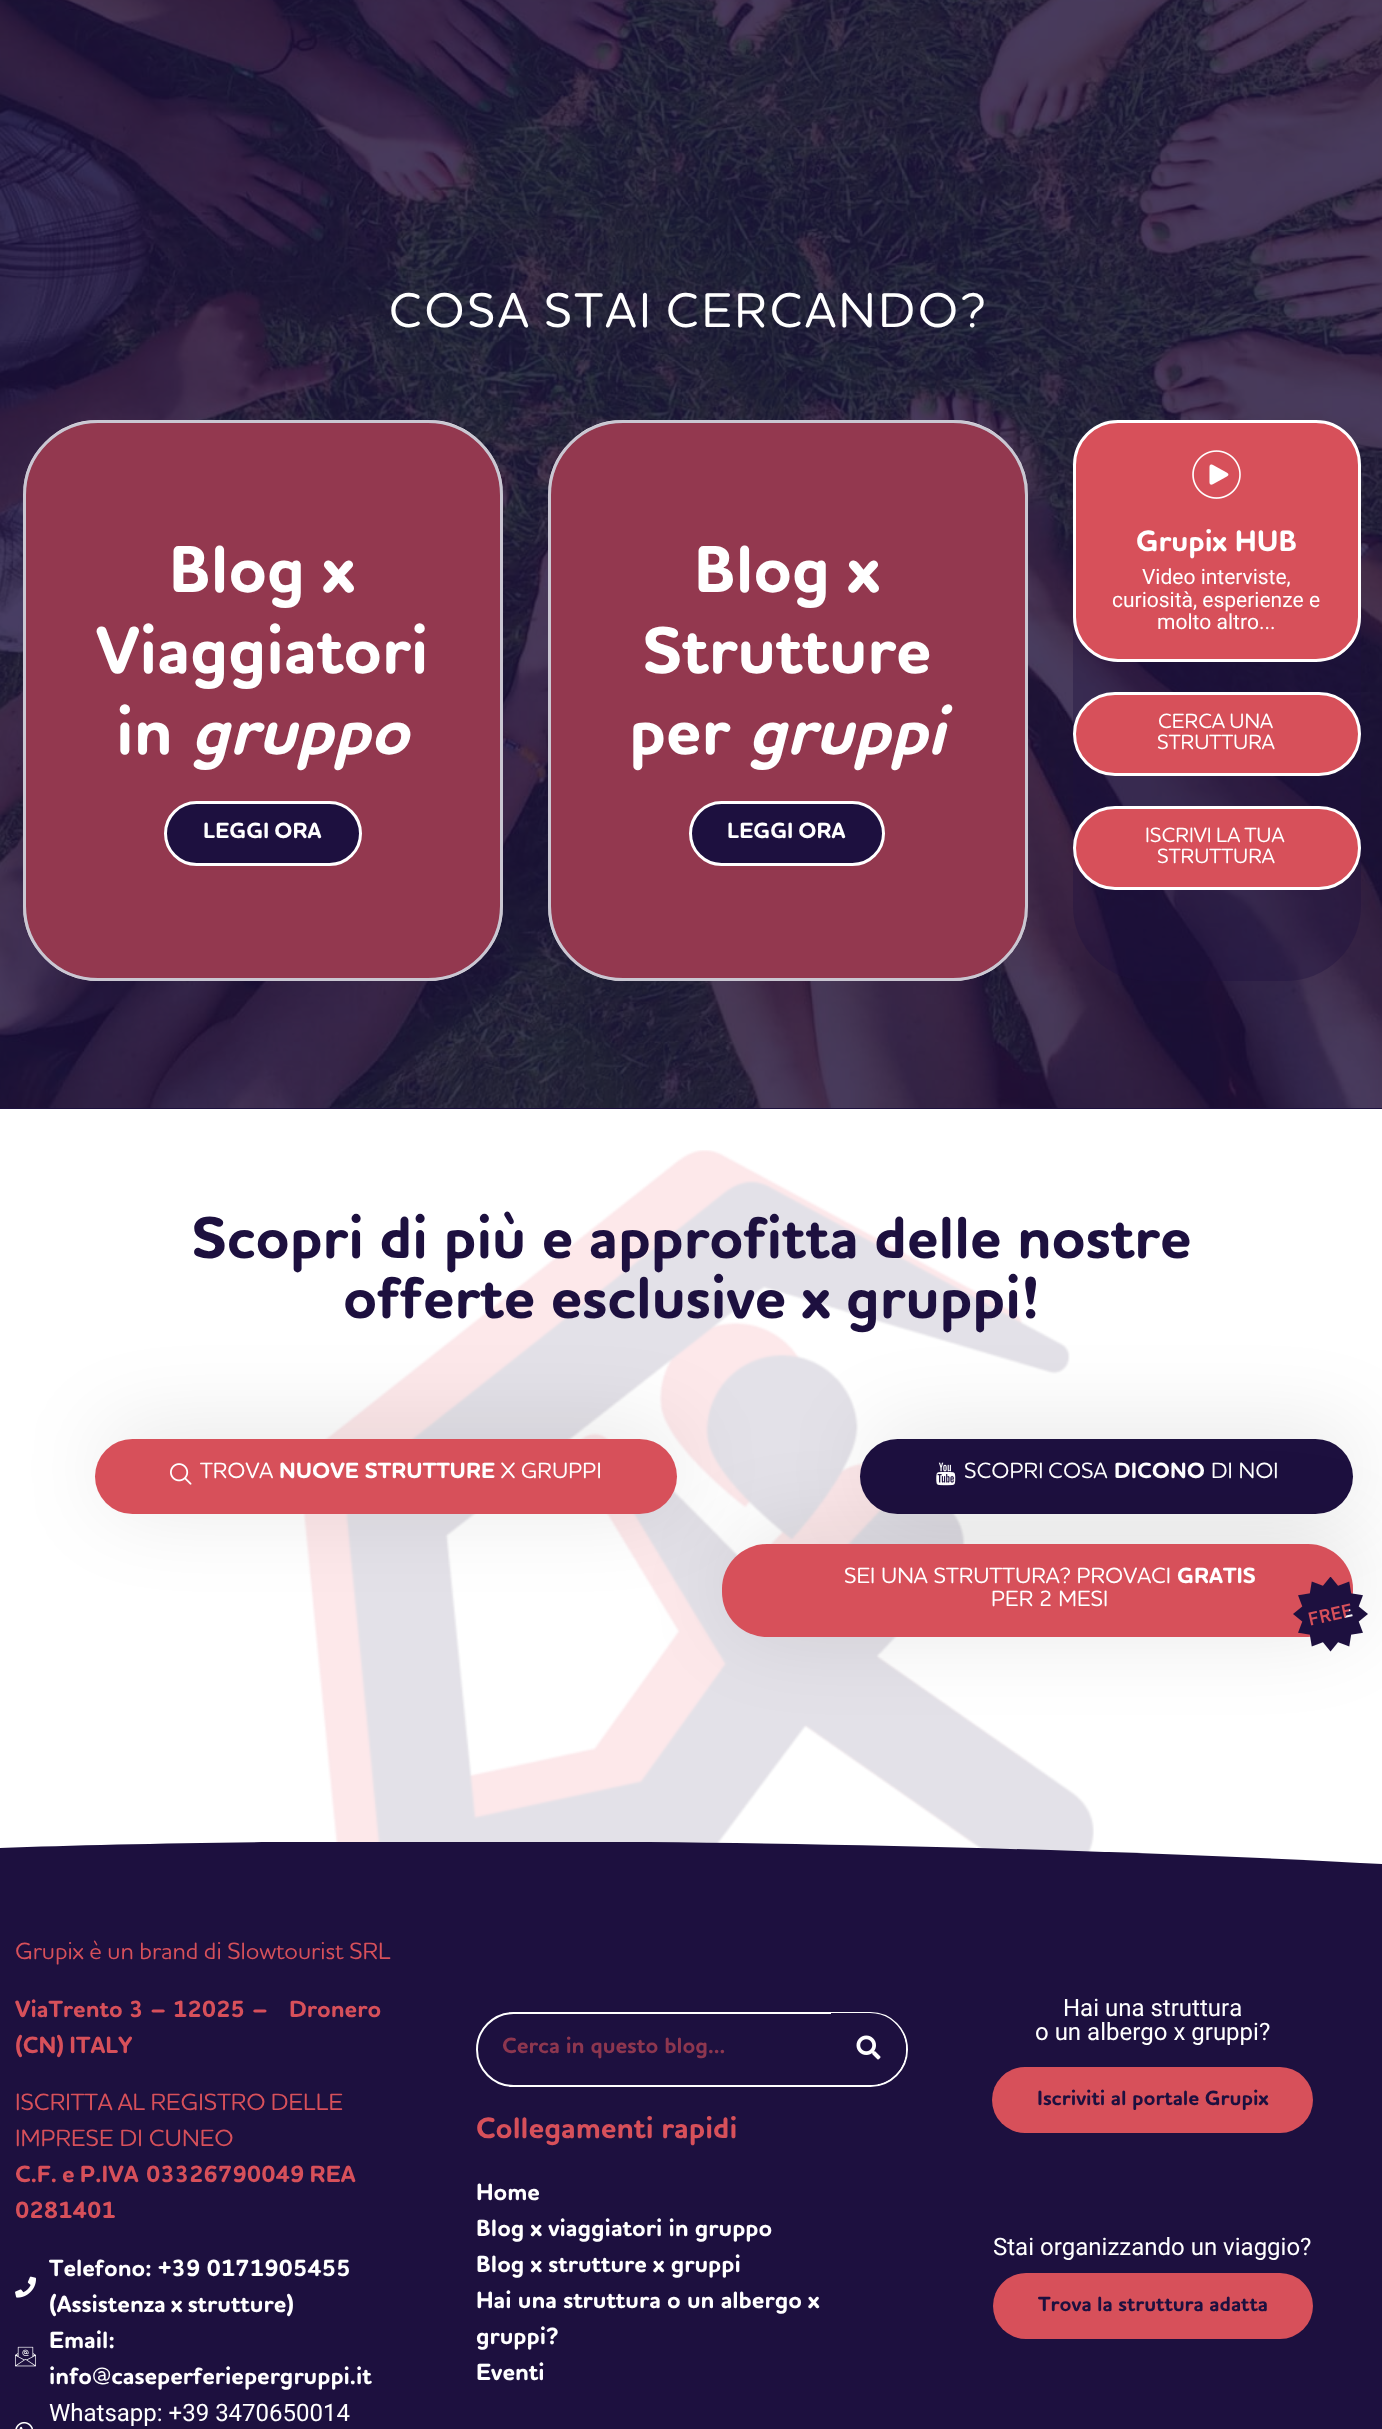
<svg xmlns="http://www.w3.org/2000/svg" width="1382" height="2429">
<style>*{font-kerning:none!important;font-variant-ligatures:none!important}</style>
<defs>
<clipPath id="clip1"><rect y="1842" width="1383" height="62"/></clipPath>
</defs>
<rect width="100%" height="100%" fill="#fff"/>
<rect y="1108" width="1382" height="1" fill="#1d103f"/>
<image x="0" y="0" width="1382" height="1108" href="media/1.png"/>
<text x="389" y="327" word-spacing="-3" style="font-family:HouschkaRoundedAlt;font-size:49.5px;letter-spacing:3px;fill:#fff">COSA STAI CERCANDO?</text>
<rect x="24.5" y="421.5" width="477" height="558" rx="73.5" fill="#d7505a" stroke="#fff" stroke-width="3"/>
<rect x="23" y="420" width="480" height="561" rx="75" fill="#1d103f5e"/>
<rect x="24.5" y="421.5" width="477" height="558" rx="73.5" fill="none" stroke="#ffffff5e" stroke-width="3"/>
<text x="169" y="592" style="font-family:'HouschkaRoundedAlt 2';font-size:67.5px;fill:#fff">Blog x</text>
<text x="96" y="673" style="font-family:'HouschkaRoundedAlt 2';font-size:67.5px;fill:#fff">Viaggiatori</text>
<text x="116" y="754" style="font-family:'HouschkaRoundedAlt 2';font-size:67.5px;fill:#fff">in</text>
<text x="191" y="754" style="font-family:HouschkaRoundedAlt;font-size:67.5px;font-style:italic;fill:#fff">gruppo</text>
<rect x="165.5" y="802.5" width="195" height="62" rx="31" fill="#1d103f" stroke="#fff" stroke-width="3"/>
<text x="203" y="838" word-spacing="-1" style="font-family:'HouschkaRoundedAlt 2';font-size:22.5px;fill:#fff">LEGGI ORA</text>
<rect x="549.5" y="421.5" width="477" height="558" rx="73.5" fill="#d7505a" stroke="#fff" stroke-width="3"/>
<rect x="548" y="420" width="480" height="561" rx="75" fill="#1d103f5e"/>
<rect x="549.5" y="421.5" width="477" height="558" rx="73.5" fill="none" stroke="#ffffff5e" stroke-width="3"/>
<text x="694" y="592" style="font-family:'HouschkaRoundedAlt 2';font-size:67.5px;fill:#fff">Blog x</text>
<text x="643" y="673" style="font-family:'HouschkaRoundedAlt 2';font-size:67.5px;fill:#fff">Strutture</text>
<text x="629" y="754" style="font-family:'HouschkaRoundedAlt 2';font-size:67.5px;fill:#fff">per</text>
<text x="748" y="754" style="font-family:HouschkaRoundedAlt;font-size:67.5px;font-style:italic;fill:#fff">gruppi</text>
<rect x="690.5" y="802.5" width="193" height="62" rx="31" fill="#1d103f" stroke="#fff" stroke-width="3"/>
<text x="727" y="838" word-spacing="-1" style="font-family:'HouschkaRoundedAlt 2';font-size:22.5px;fill:#fff">LEGGI ORA</text>
<rect x="1073" y="420" width="288" height="561" rx="75" fill="#1d103f5e"/>
<rect x="1074.5" y="421.5" width="285" height="239" rx="43.5" fill="#d7505a" stroke="#fff" stroke-width="3"/>
<image x="1192" y="450" width="49" height="49" href="media/2.png"/>
<text x="1136" y="551" style="font-family:'HouschkaRoundedAlt 2';font-size:30px;fill:#fff">Grupix HUB</text>
<text x="1142" y="584" style="font-family:Roboto;font-size:21px;fill:#fff">Video interviste,</text>
<text x="1112" y="607" style="font-family:Roboto;font-size:21px;fill:#fff">curiosità, esperienze e</text>
<text x="1157" y="629" style="font-family:Roboto;font-size:21px;fill:#fff">molto altro...</text>
<rect x="1074.5" y="693.5" width="285" height="81" rx="40.5" fill="#d7505a" stroke="#fff" stroke-width="3"/>
<text x="1158" y="728" word-spacing="-1" style="font-family:HouschkaRoundedAlt;font-size:21px;fill:#fff">CERCA UNA</text>
<text x="1157" y="749" style="font-family:HouschkaRoundedAlt;font-size:21px;fill:#fff">STRUTTURA</text>
<rect x="1074.5" y="807.5" width="285" height="81" rx="40.5" fill="#d7505a" stroke="#fff" stroke-width="3"/>
<text x="1145" y="842" word-spacing="-1" style="font-family:HouschkaRoundedAlt;font-size:21px;fill:#fff">ISCRIVI LA TUA</text>
<text x="1157" y="863" style="font-family:HouschkaRoundedAlt;font-size:21px;fill:#fff">STRUTTURA</text>
<image x="303" y="1150" width="791" height="702" href="media/3.png"/>
<text x="192" y="1258" style="font-family:'HouschkaRoundedAlt 2';font-size:60px;fill:#1d103f">Scopri di più e approfitta delle nostre</text>
<text x="343" y="1318" style="font-family:'HouschkaRoundedAlt 2';font-size:60px;fill:#1d103f">offerte esclusive x gruppi!</text>
<rect x="102" y="1431" width="582" height="75" rx="37.5" fill="#0000001a" filter="blur(45px)"/>
<rect x="95" y="1439" width="582" height="75" rx="37.5" fill="#d7505a"/>
<image x="170" y="1463" width="22" height="22" href="media/4.png"/>
<text x="200" y="1478" style="font-family:HouschkaRoundedAlt;font-size:22.5px;fill:#fff">TROVA</text>
<text x="279" y="1478" style="font-family:'HouschkaRoundedAlt 2';font-size:22.5px;fill:#fff">NUOVE STRUTTURE</text>
<text x="501" y="1478" style="font-family:HouschkaRoundedAlt;font-size:22.5px;fill:#fff">X GRUPPI</text>
<rect x="867" y="1431" width="494" height="75" rx="37.5" fill="#0000001a" filter="blur(45px)"/>
<rect x="860" y="1439" width="493" height="75" rx="37.5" fill="#1d103f"/>
<image x="936" y="1462" width="20" height="24" href="media/5.png"/>
<text x="964" y="1478" word-spacing="-1" style="font-family:HouschkaRoundedAlt;font-size:22.5px;fill:#fff">SCOPRI COSA</text>
<text x="1114" y="1478" style="font-family:'HouschkaRoundedAlt 2';font-size:22.5px;fill:#fff">DICONO</text>
<text x="1211" y="1478" style="font-family:HouschkaRoundedAlt;font-size:22.5px;fill:#fff">DI NOI</text>
<rect x="729" y="1536" width="632" height="93" rx="45" fill="#0000001a" filter="blur(45px)"/>
<rect x="722" y="1544" width="631" height="93" rx="45" fill="#d7505a"/>
<text x="844" y="1583" style="font-family:HouschkaRoundedAlt;font-size:22.5px;fill:#fff">SEI UNA STRUTTURA? PROVACI</text>
<text x="1177" y="1583" style="font-family:'HouschkaRoundedAlt 2';font-size:22.5px;fill:#fff">GRATIS</text>
<text x="991" y="1606" style="font-family:HouschkaRoundedAlt;font-size:22.5px;fill:#fff">PER 2 MESI</text>
<image x="1293" y="1577" width="75" height="75" href="media/6.png"/>
<g clip-path="url(#clip1)">
<path d="M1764 1902v-4c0-11-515-57-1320-57c-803 1-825 46-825 57v4z" fill="#1d103f"/>
</g>
<rect y="1902" width="1382" height="527" fill="#1d103f"/>
<text x="15" y="1959" word-spacing="-0.5" style="font-family:HouschkaRoundedAlt;font-size:24px;fill:#d7505a">Grupix è un brand di Slowtourist SRL</text>
<text x="15" y="2017" style="font-family:'HouschkaRoundedAlt 2';font-size:24px;fill:#d7505a">ViaTrento 3 – 12025 –</text>
<text x="289" y="2017" style="font-family:'HouschkaRoundedAlt 2';font-size:24px;fill:#d7505a">Dronero</text>
<text x="15" y="2053" word-spacing="-1" style="font-family:'HouschkaRoundedAlt 2';font-size:24px;fill:#d7505a">(CN) ITALY</text>
<text x="15" y="2110" word-spacing="-1" style="font-family:HouschkaRoundedAlt;font-size:24px;fill:#d7505a">ISCRITTA AL REGISTRO DELLE</text>
<text x="15" y="2146" style="font-family:HouschkaRoundedAlt;font-size:24px;fill:#d7505a">IMPRESE DI CUNEO</text>
<text x="15" y="2182" word-spacing="-1" style="font-family:'HouschkaRoundedAlt 2';font-size:24px;fill:#d7505a">C.F. e P.IVA</text>
<text x="146" y="2182" word-spacing="-1" style="font-family:'HouschkaRoundedAlt 2';font-size:24px;fill:#d7505a">03326790049 REA</text>
<text x="15" y="2218" style="font-family:'HouschkaRoundedAlt 2';font-size:24px;fill:#d7505a">0281401</text>
<image x="15" y="2276" width="21" height="22" href="media/7.png"/>
<text x="49" y="2276" style="font-family:'HouschkaRoundedAlt 2';font-size:24px;fill:#fff">Telefono: +39 0171905455</text>
<text x="49" y="2312" word-spacing="-1" style="font-family:'HouschkaRoundedAlt 2';font-size:24px;fill:#fff">(Assistenza x strutture)</text>
<image x="15" y="2346" width="21" height="21" href="media/8.png"/>
<text x="49" y="2348" style="font-family:'HouschkaRoundedAlt 2';font-size:24px;fill:#fff">Email:</text>
<text x="49" y="2384" style="font-family:'HouschkaRoundedAlt 2';font-size:24px;fill:#fff">info@caseperferiepergruppi.it</text>
<image x="15" y="2421" width="18" height="8" href="media/9.png"/>
<text x="49" y="2421" style="font-family:Roboto;font-size:24px;fill:#fff">Whatsapp: +39 3470650014</text>
<rect x="477" y="2013" width="430" height="73" rx="36.5" fill="none" stroke="#fff" stroke-width="2"/>
<text x="502" y="2053" style="font-family:'HouschkaRoundedAlt 2';font-size:22.5px;fill:#8d364f">Cerca in questo blog...</text>
<path d="M831 2013h39c20 0 36 16 36 36c0 20-16 36-36 36h-39z" fill="#1d103f"/>
<image x="856" y="2035" width="25" height="25" href="media/10.png"/>
<text x="476" y="2138" style="font-family:'HouschkaRoundedAlt 2';font-size:30px;fill:#d7505a">Collegamenti rapidi</text>
<text x="476" y="2200" style="font-family:'HouschkaRoundedAlt 2';font-size:24px;fill:#fff">Home</text>
<text x="476" y="2236" style="font-family:'HouschkaRoundedAlt 2';font-size:24px;fill:#fff">Blog x viaggiatori in gruppo</text>
<text x="476" y="2272" style="font-family:'HouschkaRoundedAlt 2';font-size:24px;fill:#fff">Blog x strutture x gruppi</text>
<text x="476" y="2308" style="font-family:'HouschkaRoundedAlt 2';font-size:24px;fill:#fff">Hai una struttura o un albergo x</text>
<text x="476" y="2344" style="font-family:'HouschkaRoundedAlt 2';font-size:24px;fill:#fff">gruppi?</text>
<text x="476" y="2380" style="font-family:'HouschkaRoundedAlt 2';font-size:24px;fill:#fff">Eventi</text>
<text x="1063" y="2016" style="font-family:Roboto;font-size:24px;fill:#fff">Hai una struttura</text>
<text x="1035" y="2040" style="font-family:Roboto;font-size:24px;fill:#fff">o un albergo x gruppi?</text>
<rect x="992" y="2067" width="321" height="66" rx="33" fill="#d7505a"/>
<text x="1037" y="2105" style="font-family:'HouschkaRoundedAlt 2';font-size:21px;fill:#1d103f">Iscriviti al portale Grupix</text>
<text x="993" y="2255" style="font-family:Roboto;font-size:24px;fill:#fff">Stai organizzando un viaggio?</text>
<rect x="993" y="2273" width="320" height="66" rx="33" fill="#d7505a"/>
<text x="1038" y="2311" style="font-family:'HouschkaRoundedAlt 2';font-size:21px;fill:#1d103f">Trova la struttura adatta</text>
</svg>
